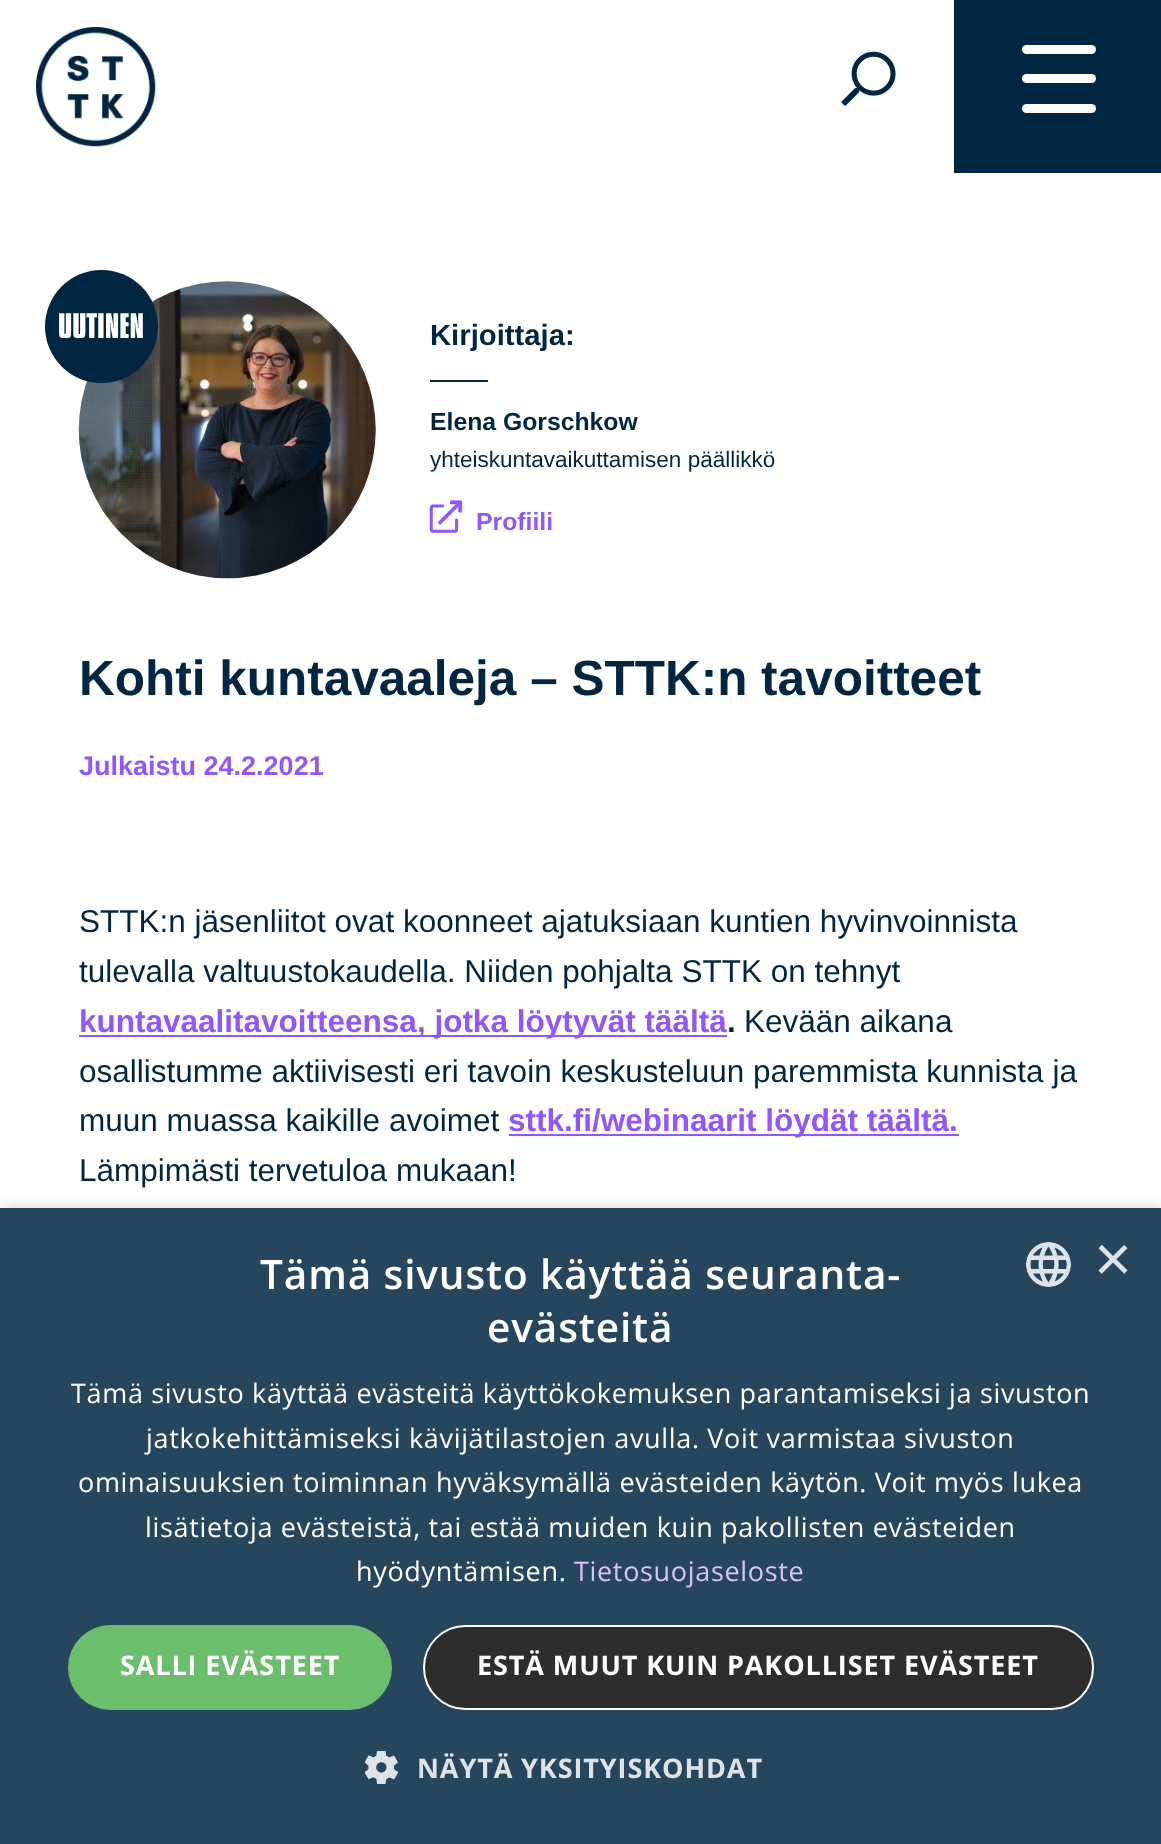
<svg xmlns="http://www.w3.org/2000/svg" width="1161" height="1844">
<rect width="100%" height="100%" fill="#fff"/>
<image x="36" y="27" width="120" height="120" href="media/1.png"/>
<image x="841" y="51" width="55" height="55" href="media/2.png"/>
<rect x="954" width="207" height="173" fill="#002642"/>
<rect x="1022" y="74" width="74" height="9" rx="4.5" fill="#fff"/>
<rect x="1022" y="45" width="74" height="9" rx="4.5" fill="#fff"/>
<rect x="1022" y="104" width="74" height="9" rx="4.5" fill="#fff"/>
<image x="78" y="281" width="298" height="298" href="media/3.png"/>
<circle cx="101.5" cy="326.5" r="56.5" fill="#002642"/>
<text x="58" y="338" style="font-family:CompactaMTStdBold;font-size:32.5px;font-weight:bold;fill:#fff">UUTINEN</text>
<text x="430" y="345" style="font-family:Liberation Sans;font-size:29.25px;font-weight:bold;fill:#002642">Kirjoittaja:</text>
<rect x="430" y="380" width="58" height="2" fill="#002642"/>
<text x="430" y="430" style="font-family:Liberation Sans;font-size:24.75px;font-weight:bold;fill:#002642">Elena Gorschkow</text>
<text x="430" y="467" style="font-family:Liberation Sans;font-size:22.5px;fill:#002642">yhteiskuntavaikuttamisen päällikkö</text>
<image x="429" y="500" width="34" height="33" href="media/4.png"/>
<text x="476" y="530" style="font-family:Liberation Sans;font-size:24.75px;font-weight:bold;fill:#9156ff">Profiili</text>
<text x="79" y="695" style="font-family:Liberation Sans;font-size:49.5px;font-weight:bold;fill:#002642">Kohti kuntavaaleja – STTK:n tavoitteet</text>
<text x="79" y="775" style="font-family:Liberation Sans;font-size:27px;font-weight:bold;fill:#9156ff">Julkaistu 24.2.2021</text>
<text x="79" y="932" style="font-family:Liberation Sans;font-size:31.5px;fill:#002642">STTK:n jäsenliitot ovat koonneet ajatuksiaan kuntien hyvinvoinnista</text>
<text x="79" y="982" style="font-family:Liberation Sans;font-size:31.5px;fill:#002642">tulevalla valtuustokaudella. Niiden pohjalta STTK on tehnyt</text>
<rect x="79" y="1035" width="648" height="2" fill="#9156ff"/>
<text x="79" y="1032" style="font-family:Liberation Sans;font-size:31.5px;font-weight:bold;fill:#9156ff">kuntavaalitavoitteensa, jotka löytyvät täältä</text>
<text x="727" y="1032" style="font-family:Liberation Sans;font-size:31.5px;font-weight:bold;fill:#002642">.</text>
<text x="744" y="1032" style="font-family:Liberation Sans;font-size:31.5px;fill:#002642">Kevään aikana</text>
<text x="79" y="1082" style="font-family:Liberation Sans;font-size:31.5px;fill:#002642">osallistumme aktiivisesti eri tavoin keskusteluun paremmista kunnista ja</text>
<text x="79" y="1131" style="font-family:Liberation Sans;font-size:31.5px;fill:#002642">muun muassa kaikille avoimet</text>
<rect x="509" y="1134" width="450" height="2" fill="#9156ff"/>
<text x="508" y="1131" style="font-family:Liberation Sans;font-size:31.5px;font-weight:bold;fill:#9156ff">sttk.fi/webinaarit löydät täältä.</text>
<text x="79" y="1181" style="font-family:Liberation Sans;font-size:31.5px;fill:#002642">Lämpimästi tervetuloa mukaan!</text>
<rect x="2" y="1213" width="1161" height="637" fill="#00000059" filter="blur(9px)"/>
<rect y="1208" width="1161" height="636" fill="#26465e"/>
<text x="260" y="1289" style="font-family:Open Sans;font-size:40.5px;font-weight:600;letter-spacing:0.9px;fill:#fff">Tämä sivusto käyttää seuranta-</text>
<text x="487" y="1342" style="font-family:Open Sans;font-size:40.5px;font-weight:600;letter-spacing:0.9px;fill:#fff">evästeitä</text>
<image x="1026" y="1242" width="45" height="45" href="media/5.png"/>
<text x="1094" y="1281" style="font-family:Liberation Sans;font-size:65px;fill:#dee3e7">×</text>
<text x="71" y="1403" style="font-family:Open Sans;font-size:27px;letter-spacing:0.67px;fill:#fff">Tämä sivusto käyttää evästeitä käyttökokemuksen parantamiseksi ja sivuston</text>
<text x="146" y="1448" style="font-family:Open Sans;font-size:27px;letter-spacing:0.67px;fill:#fff">jatkokehittämiseksi kävijätilastojen avulla. Voit varmistaa sivuston</text>
<text x="78" y="1492" style="font-family:Open Sans;font-size:27px;letter-spacing:0.67px;fill:#fff">ominaisuuksien toiminnan hyväksymällä evästeiden käytön. Voit myös lukea</text>
<text x="145" y="1537" style="font-family:Open Sans;font-size:27px;letter-spacing:0.67px;fill:#fff">lisätietoja evästeistä, tai estää muiden kuin pakollisten evästeiden</text>
<text x="356" y="1581" style="font-family:Open Sans;font-size:27px;letter-spacing:0.67px;fill:#fff">hyödyntämisen.</text>
<text x="574" y="1581" style="font-family:Open Sans;font-size:27px;letter-spacing:0.67px;fill:#d8c3ff">Tietosuojaseloste</text>
<rect x="68" y="1625" width="324" height="85" rx="42.5" fill="#6bbe6b"/>
<text x="120" y="1675" style="font-family:Open Sans;font-size:27px;font-weight:bold;letter-spacing:0.9px;fill:#fff">SALLI EVÄSTEET</text>
<rect x="424" y="1626" width="669" height="83" rx="41.5" fill="#2d2d2d" stroke="#fff" stroke-width="2"/>
<text x="477" y="1675" style="font-family:Open Sans;font-size:27px;font-weight:bold;letter-spacing:0.9px;fill:#fff">ESTÄ MUUT KUIN PAKOLLISET EVÄSTEET</text>
<image x="365" y="1751" width="33" height="33" href="media/6.png"/>
<text x="417" y="1778" style="font-family:Open Sans;font-size:27px;font-weight:bold;letter-spacing:0.9px;fill:#dee3e7">NÄYTÄ YKSITYISKOHDAT</text>
</svg>
